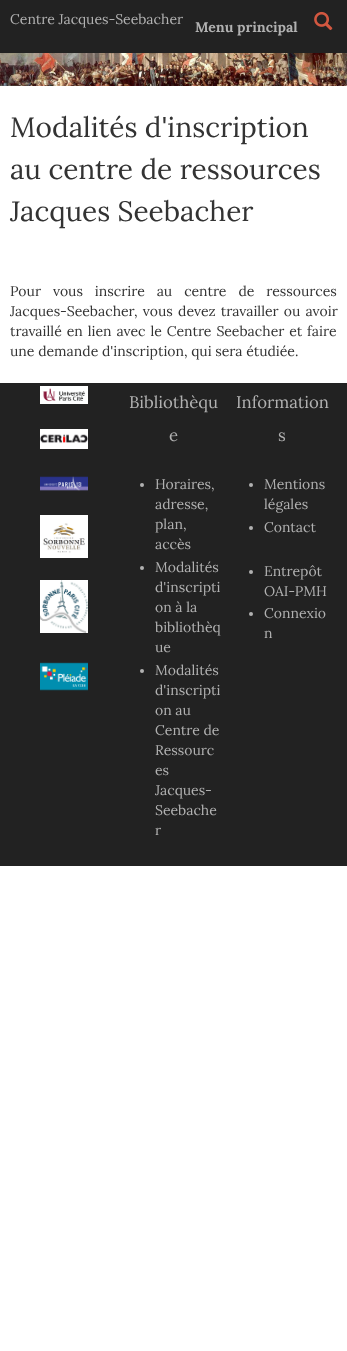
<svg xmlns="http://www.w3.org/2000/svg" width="347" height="1351">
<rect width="100%" height="100%" fill="#fff"/>
<rect width="347" height="53" fill="#222"/>
<text x="10" y="24" style="font-family:Lora;font-size:14px;fill:#b1b1b1">Centre Jacques-Seebacher</text>
<text x="195" y="32" style="font-family:Lora;font-size:14px;font-weight:bold;fill:#b1b1b1">Menu principal</text>
<image x="314" y="11" width="19" height="20" href="media/1.png"/>
<image x="0" y="53" width="347" height="33" href="media/2.png"/>
<text x="10" y="137" style="font-family:Lora;font-size:28px;fill:#333">Modalités d'inscription</text>
<text x="10" y="179" style="font-family:Lora;font-size:28px;fill:#333">au centre de ressources</text>
<text x="10" y="221" style="font-family:Lora;font-size:28px;fill:#333">Jacques Seebacher</text>
<text x="10" y="296" word-spacing="8.25" style="font-family:Lora;font-size:14px;fill:#333">Pour vous inscrire au centre de ressources</text>
<text x="10" y="316" word-spacing="1.5" style="font-family:Lora;font-size:14px;fill:#333">Jacques-Seebacher, vous devez travailler ou avoir</text>
<text x="10" y="336" word-spacing="1.25" style="font-family:Lora;font-size:14px;fill:#333">travaillé en lien avec le Centre Seebacher et faire</text>
<text x="10" y="356" style="font-family:Lora;font-size:14px;fill:#333">une demande d'inscription, qui sera étudiée.</text>
<rect y="383" width="347" height="483" fill="#222"/>
<image x="40" y="386" width="48" height="18" href="media/3.png"/>
<image x="40" y="429" width="48" height="20" href="media/4.png"/>
<image x="40" y="476" width="48" height="15" href="media/5.png"/>
<image x="40" y="515" width="48" height="43" href="media/6.png"/>
<image x="40" y="580" width="48" height="53" href="media/7.png"/>
<image x="40" y="662" width="48" height="29" href="media/8.png"/>
<text x="129" y="408" style="font-family:Lora;font-size:16.75px;fill:#b1b1b1">Bibliothèqu</text>
<text x="169" y="441" style="font-family:Lora;font-size:16.75px;fill:#b1b1b1">e</text>
<circle cx="142" cy="485" r="2" fill="#b1b1b1"/>
<text x="155" y="489" style="font-family:Lora;font-size:14px;fill:#b1b1b1">Horaires,</text>
<text x="155" y="509" style="font-family:Lora;font-size:14px;fill:#b1b1b1">adresse,</text>
<text x="155" y="529" style="font-family:Lora;font-size:14px;fill:#b1b1b1">plan,</text>
<text x="155" y="549" style="font-family:Lora;font-size:14px;fill:#b1b1b1">accès</text>
<circle cx="142" cy="568" r="2" fill="#b1b1b1"/>
<text x="155" y="572" style="font-family:Lora;font-size:14px;fill:#b1b1b1">Modalités</text>
<text x="155" y="592" style="font-family:Lora;font-size:14px;fill:#b1b1b1">d'inscripti</text>
<text x="155" y="612" style="font-family:Lora;font-size:14px;fill:#b1b1b1">on à la</text>
<text x="155" y="632" style="font-family:Lora;font-size:14px;fill:#b1b1b1">bibliothèq</text>
<text x="155" y="652" style="font-family:Lora;font-size:14px;fill:#b1b1b1">ue</text>
<circle cx="142" cy="671" r="2" fill="#b1b1b1"/>
<text x="155" y="675" style="font-family:Lora;font-size:14px;fill:#b1b1b1">Modalités</text>
<text x="155" y="695" style="font-family:Lora;font-size:14px;fill:#b1b1b1">d'inscripti</text>
<text x="155" y="715" style="font-family:Lora;font-size:14px;fill:#b1b1b1">on au</text>
<text x="155" y="735" style="font-family:Lora;font-size:14px;fill:#b1b1b1">Centre de</text>
<text x="155" y="755" style="font-family:Lora;font-size:14px;fill:#b1b1b1">Ressourc</text>
<text x="155" y="775" style="font-family:Lora;font-size:14px;fill:#b1b1b1">es</text>
<text x="155" y="795" style="font-family:Lora;font-size:14px;fill:#b1b1b1">Jacques-</text>
<text x="155" y="815" style="font-family:Lora;font-size:14px;fill:#b1b1b1">Seebache</text>
<text x="155" y="835" style="font-family:Lora;font-size:14px;fill:#b1b1b1">r</text>
<text x="236" y="408" style="font-family:Lora;font-size:16.75px;fill:#b1b1b1">Information</text>
<text x="278" y="441" style="font-family:Lora;font-size:16.75px;fill:#b1b1b1">s</text>
<circle cx="251" cy="485" r="2" fill="#b1b1b1"/>
<text x="264" y="489" style="font-family:Lora;font-size:14px;fill:#b1b1b1">Mentions</text>
<text x="264" y="509" style="font-family:Lora;font-size:14px;fill:#b1b1b1">légales</text>
<circle cx="251" cy="528" r="2" fill="#b1b1b1"/>
<text x="264" y="532" style="font-family:Lora;font-size:14px;fill:#b1b1b1">Contact</text>
<circle cx="251" cy="572" r="2" fill="#b1b1b1"/>
<text x="264" y="576" style="font-family:Lora;font-size:14px;fill:#b1b1b1">Entrepôt</text>
<text x="264" y="596" style="font-family:Lora;font-size:14px;fill:#b1b1b1">OAI-PMH</text>
<circle cx="251" cy="614" r="2" fill="#b1b1b1"/>
<text x="264" y="618" style="font-family:Lora;font-size:14px;fill:#b1b1b1">Connexio</text>
<text x="264" y="638" style="font-family:Lora;font-size:14px;fill:#b1b1b1">n</text>
</svg>
